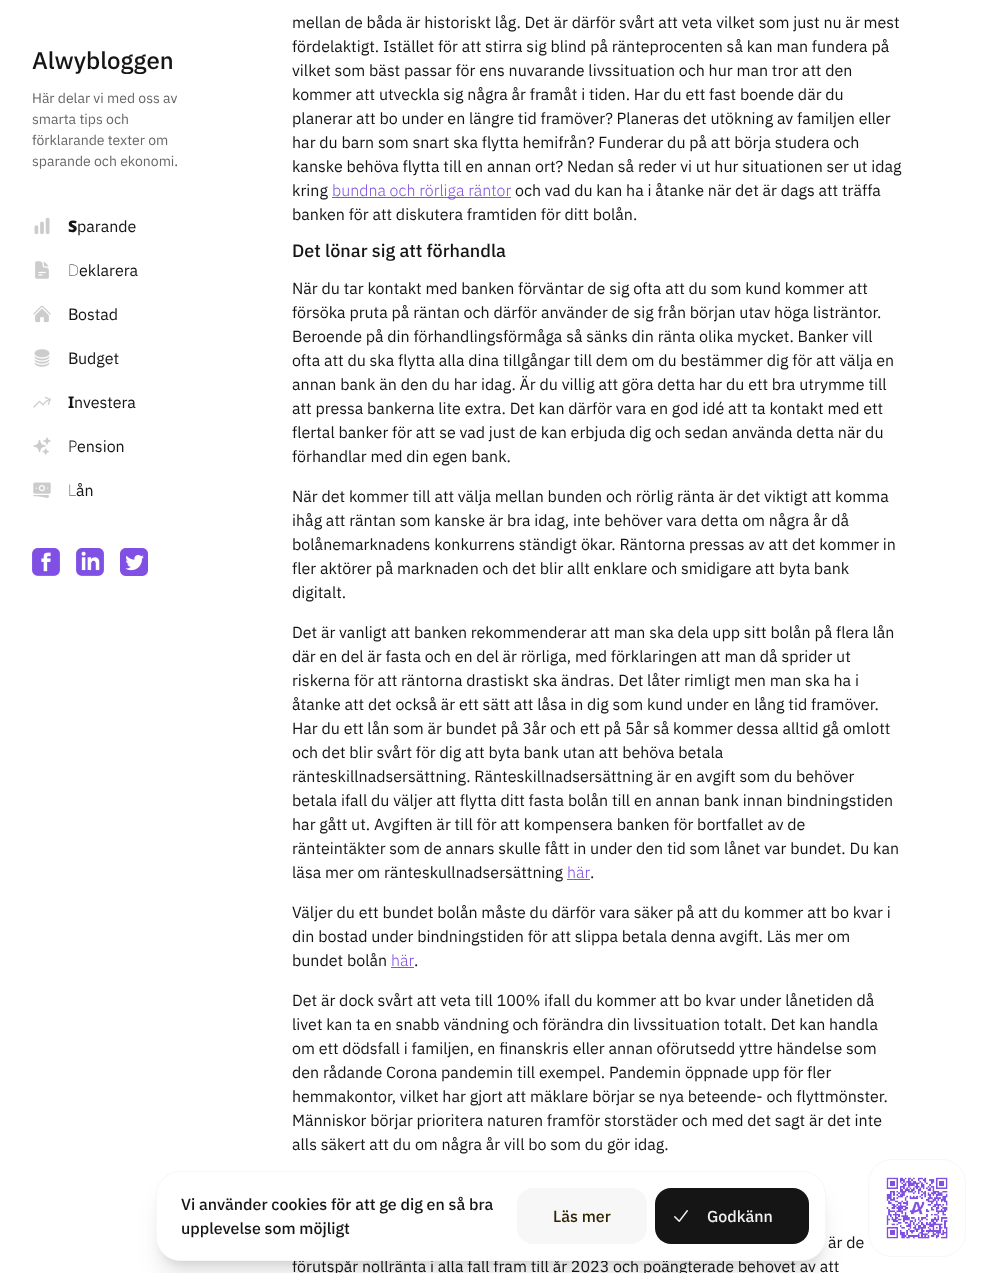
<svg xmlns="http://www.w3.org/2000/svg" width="982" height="1273">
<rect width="100%" height="100%" fill="#fff"/>
<text x="32" y="69" style="font-family:IBM Plex Sans;font-size:24px;font-weight:500;fill:#151515">Alwybloggen</text>
<text x="32" y="103" style="font-family:IBM Plex Sans;font-size:14px;fill:#666">Här delar vi med oss av</text>
<text x="32" y="124" style="font-family:IBM Plex Sans;font-size:14px;fill:#666">smarta tips och</text>
<text x="32" y="145" style="font-family:IBM Plex Sans;font-size:14px;fill:#666">förklarande texter om</text>
<text x="32" y="166" style="font-family:IBM Plex Sans;font-size:14px;fill:#666">sparande och ekonomi.</text>
<image x="34" y="217" width="16" height="18" href="media/1.png"/>
<text x="68" y="232" style="font-family:Noto Sans;font-size:16px;font-weight:900;fill:#151515">S</text>
<text x="77" y="232" style="font-family:IBM Plex Sans;font-size:16px;fill:#151515">parande</text>
<image x="35" y="261" width="14" height="18" href="media/2.png"/>
<text x="68" y="276" style="font-family:Noto Sans;font-size:16px;font-weight:100;fill:#151515">D</text>
<text x="79" y="276" style="font-family:IBM Plex Sans;font-size:16px;fill:#151515">eklarera</text>
<image x="33" y="305" width="18" height="18" href="media/3.png"/>
<text x="68" y="320" style="font-family:Noto Sans;font-size:16px;fill:#151515">B</text>
<text x="78" y="320" style="font-family:IBM Plex Sans;font-size:16px;fill:#151515">ostad</text>
<image x="34" y="349" width="16" height="18" href="media/4.png"/>
<text x="68" y="364" style="font-family:Noto Sans;font-size:16px;fill:#151515">B</text>
<text x="78" y="364" style="font-family:IBM Plex Sans;font-size:16px;fill:#151515">udget</text>
<image x="33" y="396" width="18" height="12" href="media/5.png"/>
<text x="68" y="408" style="font-family:Noto Sans;font-size:16px;font-weight:bold;fill:#151515">I</text>
<text x="74" y="408" style="font-family:IBM Plex Sans;font-size:16px;fill:#151515">nvestera</text>
<image x="33" y="437" width="18" height="18" href="media/6.png"/>
<text x="68" y="452" style="font-family:Noto Sans;font-size:16px;font-weight:300;fill:#151515">P</text>
<text x="77" y="452" style="font-family:IBM Plex Sans;font-size:16px;fill:#151515">ension</text>
<image x="33" y="482" width="18" height="16" href="media/7.png"/>
<text x="68" y="496" style="font-family:Noto Sans;font-size:16px;font-weight:100;fill:#151515">L</text>
<text x="76" y="496" style="font-family:IBM Plex Sans;font-size:16px;fill:#151515">ån</text>
<image x="32" y="548" width="28" height="28" href="media/8.png"/>
<image x="76" y="548" width="28" height="28" href="media/9.png"/>
<image x="120" y="548" width="28" height="28" href="media/10.png"/>
<text x="292" y="28" style="font-family:IBM Plex Sans;font-size:16px;fill:#151515">mellan de båda är historiskt låg. Det är därför svårt att veta vilket som just nu är mest</text>
<text x="292" y="52" style="font-family:IBM Plex Sans;font-size:16px;fill:#151515">fördelaktigt. Istället för att stirra sig blind på ränteprocenten så kan man fundera på</text>
<text x="292" y="76" style="font-family:IBM Plex Sans;font-size:16px;fill:#151515">vilket som bäst passar för ens nuvarande livssituation och hur man tror att den</text>
<text x="292" y="100" style="font-family:IBM Plex Sans;font-size:16px;fill:#151515">kommer att utveckla sig några år framåt i tiden. Har du ett fast boende där du</text>
<text x="292" y="124" style="font-family:IBM Plex Sans;font-size:16px;fill:#151515">planerar att bo under en längre tid framöver? Planeras det utökning av familjen eller</text>
<text x="292" y="148" style="font-family:IBM Plex Sans;font-size:16px;fill:#151515">har du barn som snart ska flytta hemifrån? Funderar du på att börja studera och</text>
<text x="292" y="172" style="font-family:IBM Plex Sans;font-size:16px;fill:#151515">kanske behöva flytta till en annan ort? Nedan så reder vi ut hur situationen ser ut idag</text>
<text x="292" y="196" style="font-family:IBM Plex Sans;font-size:16px;fill:#151515">kring</text>
<rect x="332" y="197" width="179" height="1" fill="#804fe3"/>
<text x="332" y="196" style="font-family:IBM Plex Sans;font-size:16px;font-weight:300;fill:#804fe3">bundna och rörliga räntor</text>
<text x="515" y="196" style="font-family:IBM Plex Sans;font-size:16px;fill:#151515">och vad du kan ha i åtanke när det är dags att träffa</text>
<text x="292" y="220" style="font-family:IBM Plex Sans;font-size:16px;fill:#151515">banken för att diskutera framtiden för ditt bolån.</text>
<text x="292" y="257" style="font-family:IBM Plex Sans;font-size:18px;font-weight:500;fill:#151515">Det lönar sig att förhandla</text>
<text x="292" y="294" style="font-family:IBM Plex Sans;font-size:16px;fill:#151515">När du tar kontakt med banken förväntar de sig ofta att du som kund kommer att</text>
<text x="292" y="318" style="font-family:IBM Plex Sans;font-size:16px;fill:#151515">försöka pruta på räntan och därför använder de sig från början utav höga listräntor.</text>
<text x="292" y="342" style="font-family:IBM Plex Sans;font-size:16px;fill:#151515">Beroende på din förhandlingsförmåga så sänks din ränta olika mycket. Banker vill</text>
<text x="292" y="366" style="font-family:IBM Plex Sans;font-size:16px;fill:#151515">ofta att du ska flytta alla dina tillgångar till dem om du bestämmer dig för att välja en</text>
<text x="292" y="390" style="font-family:IBM Plex Sans;font-size:16px;fill:#151515">annan bank än den du har idag. Är du villig att göra detta har du ett bra utrymme till</text>
<text x="292" y="414" style="font-family:IBM Plex Sans;font-size:16px;fill:#151515">att pressa bankerna lite extra. Det kan därför vara en god idé att ta kontakt med ett</text>
<text x="292" y="438" style="font-family:IBM Plex Sans;font-size:16px;fill:#151515">flertal banker för att se vad just de kan erbjuda dig och sedan använda detta när du</text>
<text x="292" y="462" style="font-family:IBM Plex Sans;font-size:16px;fill:#151515">förhandlar med din egen bank.</text>
<text x="292" y="502" style="font-family:IBM Plex Sans;font-size:16px;fill:#151515">När det kommer till att välja mellan bunden och rörlig ränta är det viktigt att komma</text>
<text x="292" y="526" style="font-family:IBM Plex Sans;font-size:16px;fill:#151515">ihåg att räntan som kanske är bra idag, inte behöver vara detta om några år då</text>
<text x="292" y="550" style="font-family:IBM Plex Sans;font-size:16px;fill:#151515">bolånemarknadens konkurrens ständigt ökar. Räntorna pressas av att det kommer in</text>
<text x="292" y="574" style="font-family:IBM Plex Sans;font-size:16px;fill:#151515">fler aktörer på marknaden och det blir allt enklare och smidigare att byta bank</text>
<text x="292" y="598" style="font-family:IBM Plex Sans;font-size:16px;fill:#151515">digitalt.</text>
<text x="292" y="638" style="font-family:IBM Plex Sans;font-size:16px;fill:#151515">Det är vanligt att banken rekommenderar att man ska dela upp sitt bolån på flera lån</text>
<text x="292" y="662" style="font-family:IBM Plex Sans;font-size:16px;fill:#151515">där en del är fasta och en del är rörliga, med förklaringen att man då sprider ut</text>
<text x="292" y="686" style="font-family:IBM Plex Sans;font-size:16px;fill:#151515">riskerna för att räntorna drastiskt ska ändras. Det låter rimligt men man ska ha i</text>
<text x="292" y="710" style="font-family:IBM Plex Sans;font-size:16px;fill:#151515">åtanke att det också är ett sätt att låsa in dig som kund under en lång tid framöver.</text>
<text x="292" y="734" style="font-family:IBM Plex Sans;font-size:16px;fill:#151515">Har du ett lån som är bundet på 3år och ett på 5år så kommer dessa alltid gå omlott</text>
<text x="292" y="758" style="font-family:IBM Plex Sans;font-size:16px;fill:#151515">och det blir svårt för dig att byta bank utan att behöva betala</text>
<text x="292" y="782" style="font-family:IBM Plex Sans;font-size:16px;fill:#151515">ränteskillnadsersättning. Ränteskillnadsersättning är en avgift som du behöver</text>
<text x="292" y="806" style="font-family:IBM Plex Sans;font-size:16px;fill:#151515">betala ifall du väljer att flytta ditt fasta bolån till en annan bank innan bindningstiden</text>
<text x="292" y="830" style="font-family:IBM Plex Sans;font-size:16px;fill:#151515">har gått ut. Avgiften är till för att kompensera banken för bortfallet av de</text>
<text x="292" y="854" style="font-family:IBM Plex Sans;font-size:16px;fill:#151515">ränteintäkter som de annars skulle fått in under den tid som lånet var bundet. Du kan</text>
<text x="292" y="878" style="font-family:IBM Plex Sans;font-size:16px;fill:#151515">läsa mer om ränteskullnadsersättning</text>
<text x="567" y="878" style="font-family:IBM Plex Sans;font-size:16px;font-weight:300;fill:#804fe3">här</text>
<rect x="567" y="879" width="23" height="1" fill="#804fe3"/>
<text x="590" y="878" style="font-family:IBM Plex Sans;font-size:16px;fill:#151515">.</text>
<text x="292" y="918" style="font-family:IBM Plex Sans;font-size:16px;fill:#151515">Väljer du ett bundet bolån måste du därför vara säker på att du kommer att bo kvar i</text>
<text x="292" y="942" style="font-family:IBM Plex Sans;font-size:16px;fill:#151515">din bostad under bindningstiden för att slippa betala denna avgift. Läs mer om</text>
<text x="292" y="966" style="font-family:IBM Plex Sans;font-size:16px;fill:#151515">bundet bolån</text>
<text x="391" y="966" style="font-family:IBM Plex Sans;font-size:16px;font-weight:300;fill:#804fe3">här</text>
<rect x="391" y="967" width="23" height="1" fill="#804fe3"/>
<text x="414" y="966" style="font-family:IBM Plex Sans;font-size:16px;fill:#151515">.</text>
<text x="292" y="1006" style="font-family:IBM Plex Sans;font-size:16px;fill:#151515">Det är dock svårt att veta till 100% ifall du kommer att bo kvar under lånetiden då</text>
<text x="292" y="1030" style="font-family:IBM Plex Sans;font-size:16px;fill:#151515">livet kan ta en snabb vändning och förändra din livssituation totalt. Det kan handla</text>
<text x="292" y="1054" style="font-family:IBM Plex Sans;font-size:16px;fill:#151515">om ett dödsfall i familjen, en finanskris eller annan oförutsedd yttre händelse som</text>
<text x="292" y="1078" style="font-family:IBM Plex Sans;font-size:16px;fill:#151515">den rådande Corona pandemin till exempel. Pandemin öppnade upp för fler</text>
<text x="292" y="1102" style="font-family:IBM Plex Sans;font-size:16px;fill:#151515">hemmakontor, vilket har gjort att mäklare börjar se nya beteende- och flyttmönster.</text>
<text x="292" y="1126" style="font-family:IBM Plex Sans;font-size:16px;fill:#151515">Människor börjar prioritera naturen framför storstäder och med det sagt är det inte</text>
<text x="292" y="1150" style="font-family:IBM Plex Sans;font-size:16px;fill:#151515">alls säkert att du om några år vill bo som du gör idag.</text>
<text x="828" y="1248" style="font-family:IBM Plex Sans;font-size:16px;fill:#151515">är de</text>
<text x="292" y="1272" style="font-family:IBM Plex Sans;font-size:16px;fill:#151515">förutspår nollränta i alla fall fram till år 2023 och poängterade behovet av att</text>
<rect x="868.5" y="1159.5" width="97" height="97" rx="23.5" fill="none" stroke="#f7f7f7"/>
<image x="886" y="1177" width="62" height="62" href="media/11.png"/>
<rect x="162" y="1185" width="658" height="78" rx="18" fill="#0000001a" filter="blur(5px)"/>
<rect x="161" y="1196" width="660" height="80" rx="19" fill="#0000001a" filter="blur(12.5px)"/>
<rect x="156.5" y="1171.5" width="669" height="89" rx="23.5" fill="#fff" stroke="#f7f7f7"/>
<text x="181" y="1210" style="font-family:IBM Plex Sans;font-size:16px;font-weight:500;fill:#151515">Vi använder cookies för att ge dig en så bra</text>
<text x="181" y="1234" style="font-family:IBM Plex Sans;font-size:16px;font-weight:500;fill:#151515">upplevelse som möjligt</text>
<rect x="517" y="1188" width="130" height="56" rx="16" fill="#f7f7f7"/>
<text x="553" y="1222" style="font-family:IBM Plex Sans;font-size:16px;font-weight:500;fill:#312402">Läs mer</text>
<rect x="655" y="1188" width="154" height="56" rx="16" fill="#151515"/>
<image x="674" y="1210" width="14" height="12" href="media/12.png"/>
<text x="707" y="1222" style="font-family:IBM Plex Sans;font-size:16px;font-weight:500;fill:#f2f2f2">Godkänn</text>
</svg>
